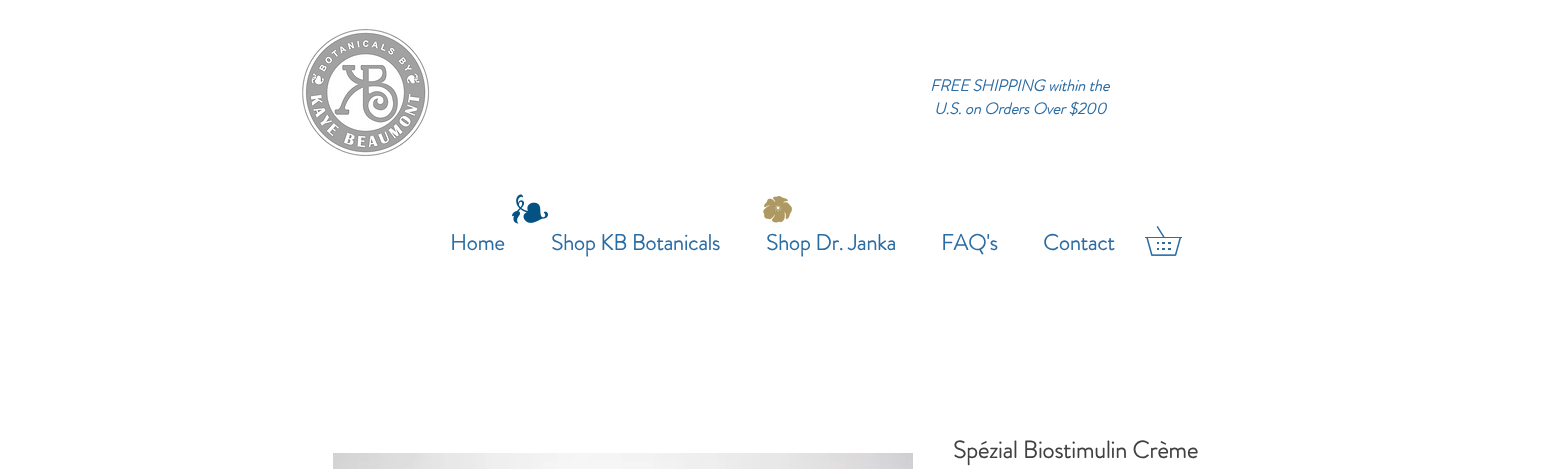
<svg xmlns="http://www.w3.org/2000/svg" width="1566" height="469">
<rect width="100%" height="100%" fill="#fff"/>
<image x="302" y="29" width="128" height="128" href="media/1.png"/>
<text x="930" y="91" style="font-family:'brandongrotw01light';font-size:16px;font-weight:bold;font-style:italic;fill:#2b6ca3">FREE SHIPPING within the</text>
<text x="934" y="114" style="font-family:'brandongrotw01light';font-size:16px;font-weight:bold;font-style:italic;fill:#2b6ca3">U.S. on Orders Over $200</text>
<image x="512" y="194" width="36" height="30" href="media/2.png"/>
<image x="763" y="196" width="29" height="27" href="media/3.png"/>
<text x="450" y="250" style="font-family:'brandongrotw01light';font-size:22px;font-weight:bold;fill:#2b6ca3">Home</text>
<text x="551" y="250" style="font-family:'brandongrotw01light';font-size:22px;font-weight:bold;fill:#2b6ca3">Shop KB Botanicals</text>
<text x="766" y="250" style="font-family:'brandongrotw01light';font-size:22px;font-weight:bold;fill:#2b6ca3">Shop Dr. Janka</text>
<text x="941" y="250" style="font-family:'brandongrotw01light';font-size:22px;font-weight:bold;fill:#2b6ca3">FAQ's</text>
<text x="1043" y="250" style="font-family:'brandongrotw01light';font-size:22px;font-weight:bold;fill:#2b6ca3">Contact</text>
<image x="1145" y="226" width="37" height="30" href="media/4.png"/>
<image x="333" y="453" width="580" height="16" href="media/5.png"/>
<text x="953" y="458" style="font-family:'brandongrotw01light';font-size:24px;font-weight:bold;fill:#414141">Spézial Biostimulin Crème</text>
</svg>
